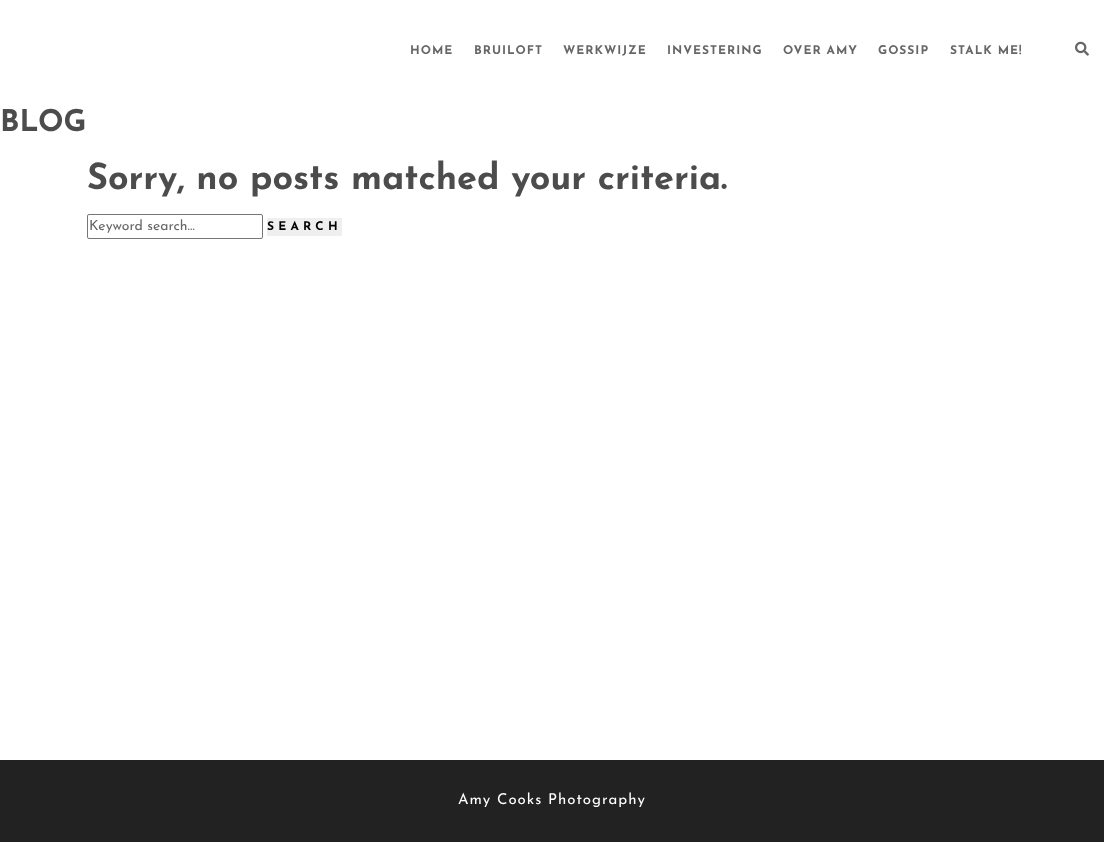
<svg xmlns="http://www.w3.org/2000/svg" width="1104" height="842">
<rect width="100%" height="100%" fill="#fff"/>
<text x="410" y="54" style="font-family:Josefin Sans;font-size:12px;font-weight:bold;letter-spacing:1px;fill:#666">HOME</text>
<text x="474" y="54" style="font-family:Josefin Sans;font-size:12px;font-weight:bold;letter-spacing:1px;fill:#666">BRUILOFT</text>
<text x="563" y="54" style="font-family:Josefin Sans;font-size:12px;font-weight:bold;letter-spacing:1px;fill:#666">WERKWIJZE</text>
<text x="667" y="54" style="font-family:Josefin Sans;font-size:12px;font-weight:bold;letter-spacing:1px;fill:#666">INVESTERING</text>
<text x="783" y="54" style="font-family:Josefin Sans;font-size:12px;font-weight:bold;letter-spacing:1px;fill:#666">OVER AMY</text>
<text x="878" y="54" style="font-family:Josefin Sans;font-size:12px;font-weight:bold;letter-spacing:1px;fill:#666">GOSSIP</text>
<text x="950" y="54" style="font-family:Josefin Sans;font-size:12px;font-weight:bold;letter-spacing:1px;fill:#666">STALK ME!</text>
<image x="1075" y="41" width="14" height="15" href="media/1.png"/>
<text x="0" y="131" style="font-family:Josefin Sans;font-size:30px;font-weight:bold;fill:#4c4c4c">BLOG</text>
<text x="87" y="189" style="font-family:Josefin Sans;font-size:36px;font-weight:bold;fill:#4c4c4c">Sorry, no posts matched your criteria.</text>
<rect x="87.5" y="214.5" width="175" height="24" rx="1.5" fill="none" stroke="#767676"/>
<text x="89" y="230" style="font-family:Josefin Sans;font-size:14px;fill:#666">Keyword search…</text>
<rect x="267" y="218" width="75" height="18" fill="#efefef"/>
<text x="267" y="230" style="font-family:Josefin Sans;font-size:12px;font-weight:bold;letter-spacing:4.25px;fill:#000">SEARCH</text>
<rect y="760" width="1104" height="82" fill="#222"/>
<text x="458" y="804" style="font-family:Josefin Sans;font-size:15px;letter-spacing:1px;fill:#fff">Amy Cooks Photography</text>
</svg>
